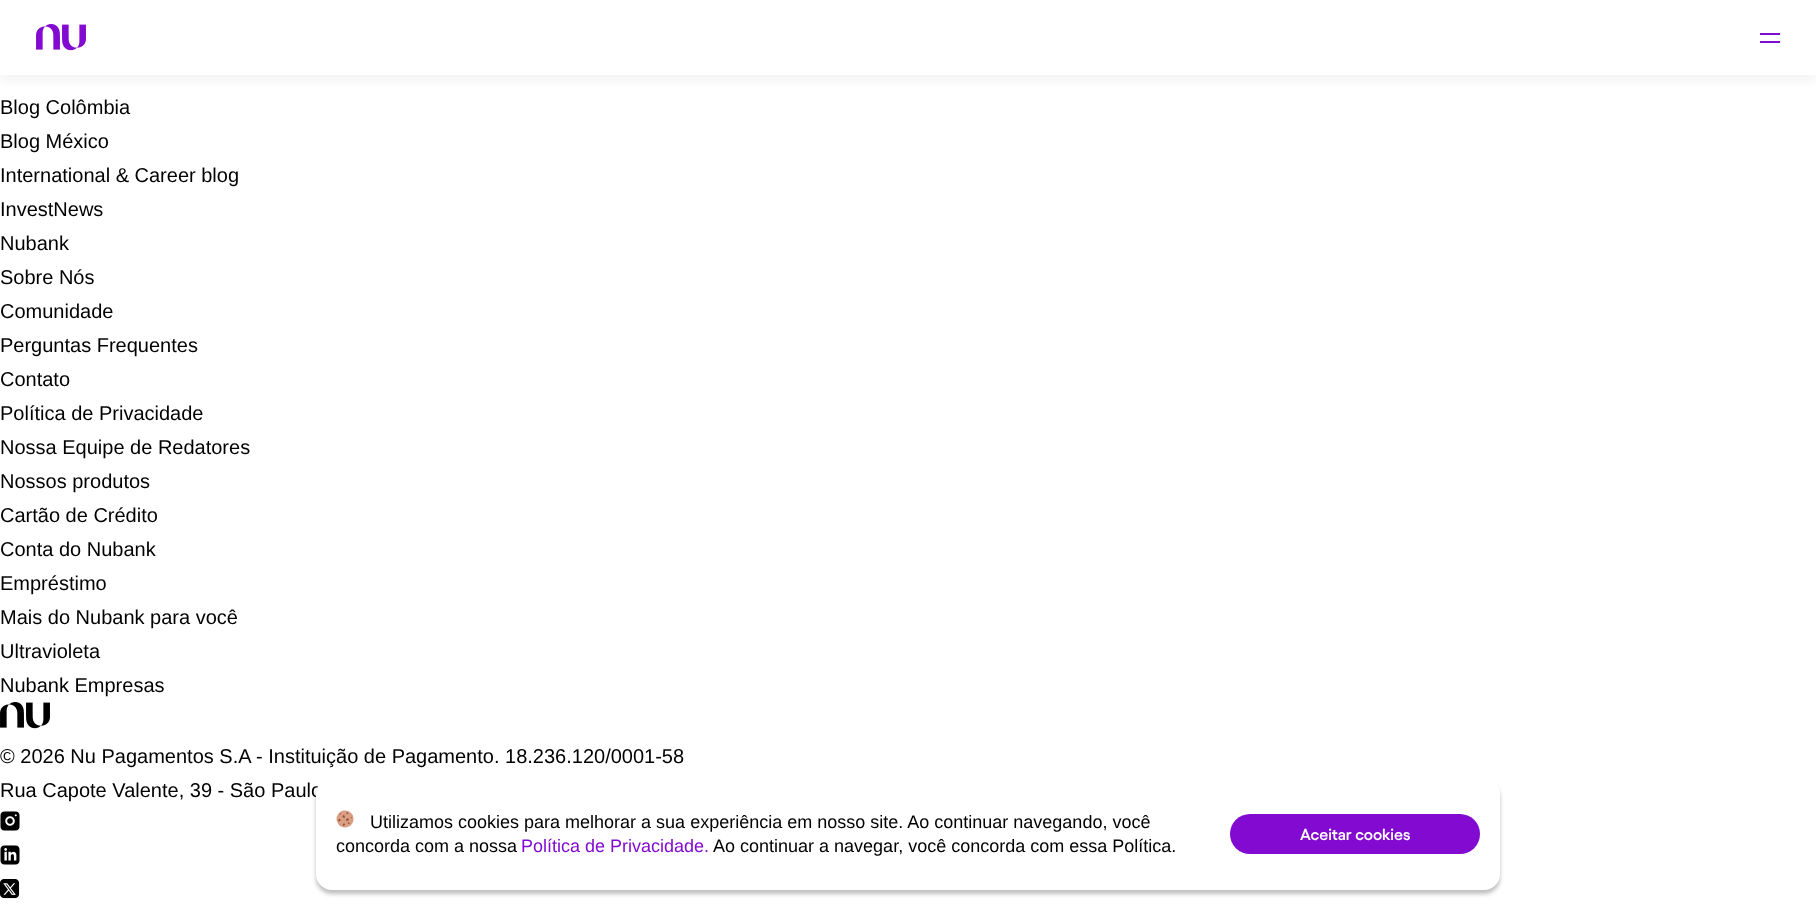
<svg xmlns="http://www.w3.org/2000/svg" width="1816" height="906">
<rect width="100%" height="100%" fill="#fff"/>
<rect y="4" width="1816" height="75" fill="#0000000f" filter="blur(6px)"/>
<rect width="1816" height="75" fill="#fff"/>
<image x="36" y="24" width="50" height="27" href="media/1.png"/>
<rect x="1760" y="33" width="20" height="2" fill="#820ad1"/>
<rect x="1760" y="41" width="20" height="2" fill="#820ad1"/>
<text x="0" y="114" style="font-family:Liberation Sans;font-size:20px;fill:#000">Blog Colômbia</text>
<text x="0" y="148" style="font-family:Liberation Sans;font-size:20px;fill:#000">Blog México</text>
<text x="0" y="182" style="font-family:Liberation Sans;font-size:20px;fill:#000">International &amp; Career blog</text>
<text x="0" y="216" style="font-family:Liberation Sans;font-size:20px;fill:#000">InvestNews</text>
<text x="0" y="250" style="font-family:Liberation Sans;font-size:20px;fill:#000">Nubank</text>
<text x="0" y="284" style="font-family:Liberation Sans;font-size:20px;fill:#000">Sobre Nós</text>
<text x="0" y="318" style="font-family:Liberation Sans;font-size:20px;fill:#000">Comunidade</text>
<text x="0" y="352" style="font-family:Liberation Sans;font-size:20px;fill:#000">Perguntas Frequentes</text>
<text x="0" y="386" style="font-family:Liberation Sans;font-size:20px;fill:#000">Contato</text>
<text x="0" y="420" style="font-family:Liberation Sans;font-size:20px;fill:#000">Política de Privacidade</text>
<text x="0" y="454" style="font-family:Liberation Sans;font-size:20px;fill:#000">Nossa Equipe de Redatores</text>
<text x="0" y="488" style="font-family:Liberation Sans;font-size:20px;fill:#000">Nossos produtos</text>
<text x="0" y="522" style="font-family:Liberation Sans;font-size:20px;fill:#000">Cartão de Crédito</text>
<text x="0" y="556" style="font-family:Liberation Sans;font-size:20px;fill:#000">Conta do Nubank</text>
<text x="0" y="590" style="font-family:Liberation Sans;font-size:20px;fill:#000">Empréstimo</text>
<text x="0" y="624" style="font-family:Liberation Sans;font-size:20px;fill:#000">Mais do Nubank para você</text>
<text x="0" y="658" style="font-family:Liberation Sans;font-size:20px;fill:#000">Ultravioleta</text>
<text x="0" y="692" style="font-family:Liberation Sans;font-size:20px;fill:#000">Nubank Empresas</text>
<image x="0" y="702" width="50" height="27" href="media/2.png"/>
<text x="0" y="763" style="font-family:Liberation Sans;font-size:20px;fill:#000">© 2026 Nu Pagamentos S.A - Instituição de Pagamento. 18.236.120/0001-58</text>
<text x="0" y="797" style="font-family:Liberation Sans;font-size:20px;fill:#000">Rua Capote Valente, 39 - São Paulo</text>
<image x="0" y="811" width="20" height="20" href="media/3.png"/>
<image x="0" y="845" width="20" height="20" href="media/4.png"/>
<image x="0" y="879" width="20" height="20" href="media/5.png"/>
<rect x="316" y="782" width="1184" height="112" rx="16" fill="#00000040" filter="blur(2px)"/>
<rect x="316" y="778" width="1184" height="112" rx="16" fill="#fff"/>
<image x="336" y="810" width="18" height="18" href="media/6.png"/>
<text x="370" y="828" style="font-family:Liberation Sans;font-size:18px;fill:#000">Utilizamos cookies para melhorar a sua experiência em nosso site. Ao continuar navegando, você</text>
<text x="336" y="852" style="font-family:Liberation Sans;font-size:18px;fill:#000">concorda com a nossa</text>
<text x="521" y="852" style="font-family:Liberation Sans;font-size:18px;fill:#820ad1">Política de Privacidade.</text>
<text x="713" y="852" style="font-family:Liberation Sans;font-size:18px;fill:#000">Ao continuar a navegar, você concorda com essa Política.</text>
<rect x="1230" y="814" width="250" height="40" rx="20" fill="#820ad1"/>
<text x="1300" y="840" style="font-family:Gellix;font-size:16px;font-weight:600;fill:#fff">Aceitar cookies</text>
</svg>
